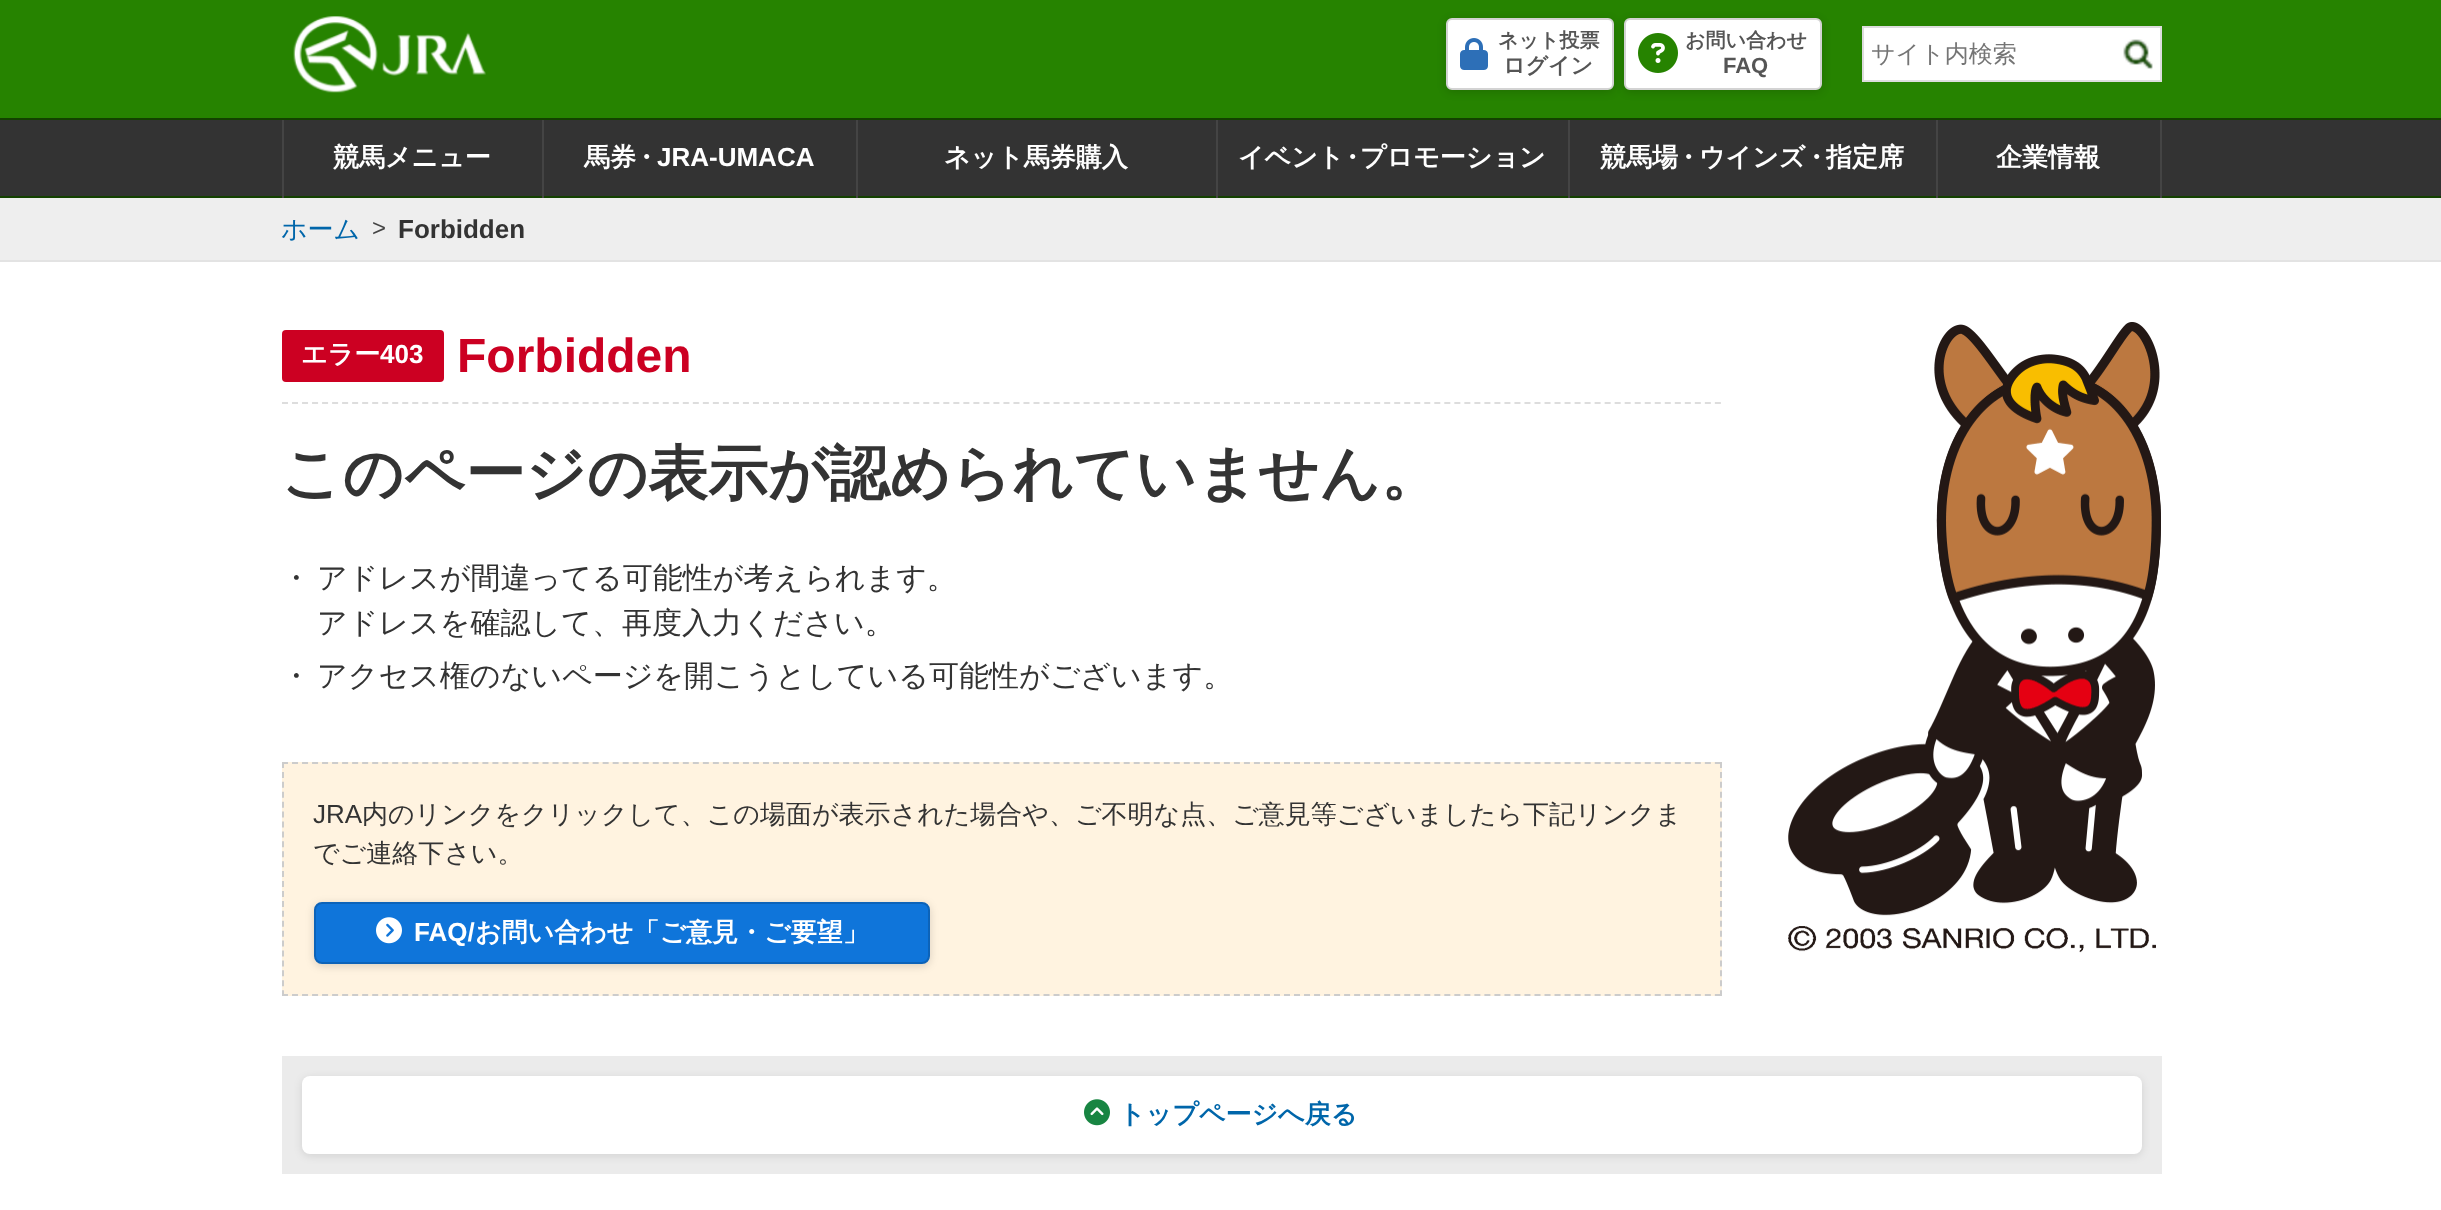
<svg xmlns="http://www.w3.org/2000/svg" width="2441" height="1210">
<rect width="100%" height="100%" fill="#fff"/>
<rect width="2441" height="118" fill="#268300"/>
<image x="293" y="16" width="193" height="77" href="media/1.png"/>
<rect x="1446" y="20" width="168" height="72" rx="6" fill="#00000026" filter="blur(4px)"/>
<rect x="1447" y="19" width="166" height="70" rx="5" fill="#fff" stroke="#d3d3d3" stroke-width="2"/>
<image x="1460" y="38" width="28" height="32" href="media/2.png"/>
<text x="1498" y="47" style="font-family:WenQuanYi Zen Hei;font-size:20px;font-weight:bold;fill:#555">ネット投票</text>
<text x="1503" y="73" style="font-family:WenQuanYi Zen Hei;font-size:22px;font-weight:bold;fill:#555">ログイン</text>
<rect x="1624" y="20" width="198" height="72" rx="6" fill="#00000026" filter="blur(4px)"/>
<rect x="1625" y="19" width="196" height="70" rx="5" fill="#fff" stroke="#d3d3d3" stroke-width="2"/>
<image x="1638" y="33" width="40" height="40" href="media/3.png"/>
<text x="1685" y="47" style="font-family:WenQuanYi Zen Hei;font-size:20px;font-weight:bold;fill:#555">お問い合わせ</text>
<text x="1723" y="73" style="font-family:Liberation Sans;font-size:22px;font-weight:bold;fill:#555">FAQ</text>
<rect x="1863" y="27" width="298" height="54" fill="#fff" stroke="#ddd" stroke-width="2"/>
<text x="1871" y="62" style="font-family:WenQuanYi Zen Hei;font-size:24px;font-weight:500;fill:#757575">サイト内検索</text>
<image x="2123" y="39" width="30" height="31" href="media/4.png"/>
<rect y="120" width="2441" height="76" fill="#333"/>
<rect y="118" width="2441" height="2" fill="#134100"/>
<rect y="196" width="2441" height="2" fill="#134100"/>
<rect x="282" y="120" width="2" height="78" fill="#444"/>
<text x="333" y="166" style="font-family:WenQuanYi Zen Hei;font-size:26px;font-weight:bold;fill:#fff">競馬メニュー</text>
<rect x="542" y="120" width="2" height="78" fill="#444"/>
<text x="584" y="166" style="font-family:WenQuanYi Zen Hei;font-size:26px;font-weight:bold;fill:#fff">馬券</text>
<text x="633" y="166" style="font-family:WenQuanYi Zen Hei;font-size:26px;font-weight:bold;letter-spacing:-3px;fill:#fff">・</text>
<text x="657" y="166" style="font-family:Liberation Sans;font-size:26px;font-weight:bold;fill:#fff">JRA-UMACA</text>
<rect x="856" y="120" width="2" height="78" fill="#444"/>
<text x="944" y="166" style="font-family:WenQuanYi Zen Hei;font-size:26px;font-weight:bold;fill:#fff">ネット馬券購入</text>
<rect x="1216" y="120" width="2" height="78" fill="#444"/>
<text x="1238" y="166" style="font-family:WenQuanYi Zen Hei;font-size:26px;font-weight:bold;fill:#fff">イベント</text>
<text x="1339" y="166" style="font-family:WenQuanYi Zen Hei;font-size:26px;font-weight:bold;letter-spacing:-5px;fill:#fff">・</text>
<text x="1360" y="166" style="font-family:WenQuanYi Zen Hei;font-size:26px;font-weight:bold;fill:#fff">プロモーション</text>
<rect x="1568" y="120" width="2" height="78" fill="#444"/>
<text x="1600" y="166" style="font-family:WenQuanYi Zen Hei;font-size:26px;font-weight:bold;fill:#fff">競馬場</text>
<text x="1675" y="166" style="font-family:WenQuanYi Zen Hei;font-size:26px;font-weight:bold;letter-spacing:-3px;fill:#fff">・</text>
<text x="1699" y="166" style="font-family:WenQuanYi Zen Hei;font-size:26px;font-weight:bold;fill:#fff">ウインズ</text>
<text x="1803" y="166" style="font-family:WenQuanYi Zen Hei;font-size:26px;font-weight:bold;letter-spacing:-3px;fill:#fff">・</text>
<text x="1826" y="166" style="font-family:WenQuanYi Zen Hei;font-size:26px;font-weight:bold;fill:#fff">指定席</text>
<rect x="2160" y="120" width="2" height="78" fill="#444"/>
<rect x="1936" y="120" width="2" height="78" fill="#444"/>
<text x="1996" y="166" style="font-family:WenQuanYi Zen Hei;font-size:26px;font-weight:bold;fill:#fff">企業情報</text>
<rect y="198" width="2441" height="62" fill="#eee"/>
<rect y="260" width="2441" height="2" fill="#e3e3e3"/>
<text x="281" y="238" style="font-family:WenQuanYi Zen Hei;font-size:26px;font-weight:500;fill:#06a">ホーム</text>
<text x="372" y="236" style="font-family:Liberation Sans;font-size:24px;fill:#444">&gt;</text>
<text x="398" y="238" style="font-family:Liberation Sans;font-size:26px;font-weight:bold;fill:#333">Forbidden</text>
<path d="M282 403h1440" fill="none" stroke="#ddd" stroke-width="2" stroke-dasharray="6 4.02"/>
<rect x="282" y="330" width="162" height="52" rx="4" fill="#c02"/>
<text x="301" y="363" style="font-family:WenQuanYi Zen Hei;font-size:26px;font-weight:bold;fill:#fff">エラー</text>
<text x="380" y="363" style="font-family:Liberation Sans;font-size:26px;font-weight:bold;fill:#fff">403</text>
<text x="457" y="372" style="font-family:Liberation Sans;font-size:48px;font-weight:bold;fill:#c02">Forbidden</text>
<text x="281" y="494" style="font-family:WenQuanYi Zen Hei;font-size:60px;font-weight:bold;fill:#333">このページの表示が認められていません。</text>
<text x="281" y="588" style="font-family:WenQuanYi Zen Hei;font-size:30px;font-weight:500;fill:#333">・</text>
<text x="317" y="588" style="font-family:WenQuanYi Zen Hei;font-size:30px;font-weight:500;fill:#333">アドレスが間違ってる可能性が考えられます。</text>
<text x="317" y="633" style="font-family:WenQuanYi Zen Hei;font-size:30px;font-weight:500;fill:#333">アドレスを確認して、再度入力ください。</text>
<text x="281" y="686" style="font-family:WenQuanYi Zen Hei;font-size:30px;font-weight:500;fill:#333">・</text>
<text x="317" y="686" style="font-family:WenQuanYi Zen Hei;font-size:30px;font-weight:500;fill:#333">アクセス権のないページを開こうとしている可能性がございます。</text>
<rect x="282" y="762" width="1440" height="234" fill="#fff3e0"/>
<path d="M282 763h1440" fill="none" stroke="#ccc" stroke-width="2" stroke-dasharray="6 4.02"/>
<path d="M1721 762v234" fill="none" stroke="#ccc" stroke-width="2" stroke-dasharray="6 3.92"/>
<path d="M282 995h1440" fill="none" stroke="#ccc" stroke-width="2" stroke-dasharray="6 4.02"/>
<path d="M283 762v234" fill="none" stroke="#ccc" stroke-width="2" stroke-dasharray="6 3.92"/>
<text x="313" y="823" style="font-family:Liberation Sans;font-size:26px;fill:#333">JRA</text>
<text x="362" y="823" style="font-family:WenQuanYi Zen Hei;font-size:26px;font-weight:500;fill:#333">内のリンクをクリックして、この場面が表示された場合や、ご不明な点、ご意見等ございましたら下記リンクま</text>
<text x="313" y="862" style="font-family:WenQuanYi Zen Hei;font-size:26px;font-weight:500;fill:#333">でご連絡下さい。</text>
<rect x="314" y="904" width="616" height="62" rx="8" fill="#00000026" filter="blur(4px)"/>
<rect x="315" y="903" width="614" height="60" rx="7" fill="#0f75da" stroke="#0c63b9" stroke-width="2"/>
<image x="376" y="917" width="26" height="27" href="media/5.png"/>
<text x="414" y="941" style="font-family:Liberation Sans;font-size:26px;font-weight:bold;fill:#fff">FAQ/</text>
<text x="475" y="941" style="font-family:WenQuanYi Zen Hei;font-size:26px;font-weight:bold;fill:#fff">お問い合わせ「ご意見・ご要望」</text>
<image x="1788" y="322" width="373" height="631" href="media/6.png"/>
<rect x="282" y="1056" width="1880" height="118" fill="#ebebeb"/>
<rect x="302" y="1078" width="1840" height="78" rx="8" fill="#0000001a" filter="blur(4px)"/>
<rect x="302" y="1076" width="1840" height="78" rx="8" fill="#fff"/>
<image x="1084" y="1099" width="26" height="27" href="media/7.png"/>
<text x="1119" y="1123" style="font-family:WenQuanYi Zen Hei;font-size:26px;font-weight:bold;fill:#06a">トップページへ戻る</text>
</svg>
